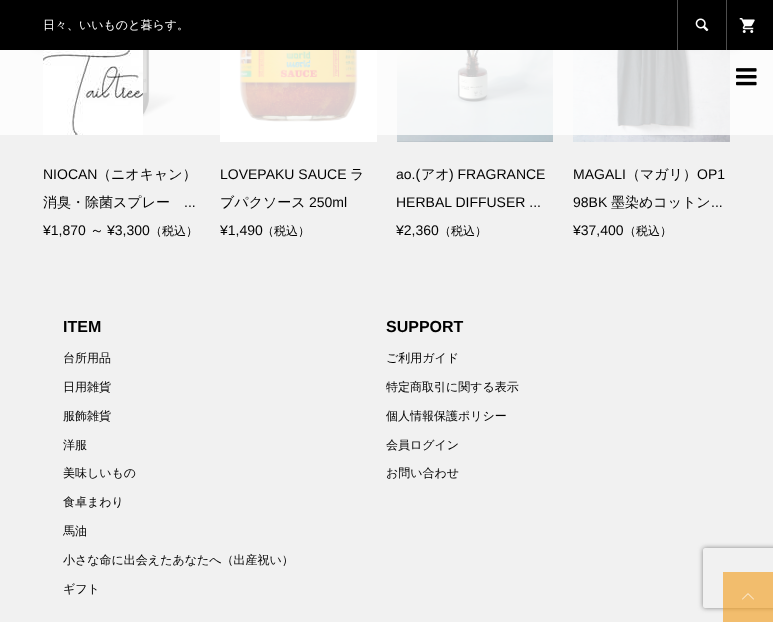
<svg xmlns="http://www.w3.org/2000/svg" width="773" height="622">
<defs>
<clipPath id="clip1"><path d="M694 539h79v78h-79zm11 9h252c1 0 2 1 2 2v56c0 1-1 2-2 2h-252c-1 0-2-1-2-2v-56c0-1 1-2 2-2z" clip-rule="evenodd"/></clipPath>
</defs>
<rect width="100%" height="100%" fill="#f1f1f1"/>
<rect x="28" y="20" width="30" height="30" rx="15" fill="#00000033" filter="blur(5px)"/>
<image x="573" y="50" width="157" height="92" href="media/8.png"/>
<rect x="715" y="20" width="30" height="30" rx="15" fill="#00000033" filter="blur(5px)"/>
<rect width="773" height="50" fill="#000"/>
<text x="43" y="29" style="font-family:WenQuanYi Zen Hei;font-size:12px;font-weight:500;fill:#fff">日々、いいものと暮らす。</text>
<rect x="677" width="1" height="50" fill="#4d4d4d"/>
<image x="695" y="18" width="14" height="14" href="media/1.png"/>
<rect x="726" width="1" height="50" fill="#4d4d4d"/>
<image x="739" y="18" width="16" height="15" href="media/2.png"/>
<image x="143" y="50" width="33" height="68" href="media/5.png"/>
<image x="220" y="50" width="157" height="92" href="media/6.png"/>
<image x="397" y="50" width="156" height="92" href="media/7.png"/>
<rect y="50" width="773" height="85" fill="#ffffffcc"/>
<image x="43" y="50" width="100" height="85" href="media/3.png"/>
<image x="736" y="68" width="21" height="18" href="media/4.png"/>
<text x="43" y="179" style="font-family:Liberation Sans;font-size:14px;fill:#000">NIOCAN</text>
<text x="97" y="179" style="font-family:WenQuanYi Zen Hei;font-size:14px;font-weight:500;fill:#000">（ニオキャン）</text>
<text x="43" y="207" style="font-family:WenQuanYi Zen Hei;font-size:14px;font-weight:500;fill:#000">消臭・除菌スプレー</text>
<text x="184" y="207" style="font-family:Liberation Sans;font-size:14px;fill:#000">...</text>
<text x="43" y="235" style="font-family:Liberation Sans;font-size:14px;fill:#000">¥1,870</text>
<text x="90" y="235" style="font-family:WenQuanYi Zen Hei;font-size:14px;font-weight:500;fill:#000">～</text>
<text x="107" y="235" style="font-family:Liberation Sans;font-size:14px;fill:#000">¥3,300</text>
<text x="150" y="235" style="font-family:WenQuanYi Zen Hei;font-size:12px;font-weight:500;fill:#000">（税込）</text>
<text x="220" y="179" style="font-family:Liberation Sans;font-size:14px;fill:#000">LOVEPAKU SAUCE</text>
<text x="350" y="179" style="font-family:WenQuanYi Zen Hei;font-size:14px;font-weight:500;fill:#000">ラ</text>
<text x="220" y="207" style="font-family:WenQuanYi Zen Hei;font-size:14px;font-weight:500;fill:#000">ブパクソース</text>
<text x="309" y="207" style="font-family:Liberation Sans;font-size:14px;fill:#000">250ml</text>
<text x="220" y="235" style="font-family:Liberation Sans;font-size:14px;fill:#000">¥1,490</text>
<text x="262" y="235" style="font-family:WenQuanYi Zen Hei;font-size:12px;font-weight:500;fill:#000">（税込）</text>
<text x="396" y="179" style="font-family:Liberation Sans;font-size:14px;fill:#000">ao.(</text>
<text x="421" y="179" style="font-family:WenQuanYi Zen Hei;font-size:14px;font-weight:500;fill:#000">アオ</text>
<text x="449" y="179" style="font-family:Liberation Sans;font-size:14px;fill:#000">) FRAGRANCE</text>
<text x="396" y="207" style="font-family:Liberation Sans;font-size:14px;fill:#000">HERBAL DIFFUSER ...</text>
<text x="396" y="235" style="font-family:Liberation Sans;font-size:14px;fill:#000">¥2,360</text>
<text x="439" y="235" style="font-family:WenQuanYi Zen Hei;font-size:12px;font-weight:500;fill:#000">（税込）</text>
<text x="573" y="179" style="font-family:Liberation Sans;font-size:14px;fill:#000">MAGALI</text>
<text x="626" y="179" style="font-family:WenQuanYi Zen Hei;font-size:14px;font-weight:500;fill:#000">（マガリ）</text>
<text x="697" y="179" style="font-family:Liberation Sans;font-size:14px;fill:#000">OP1</text>
<text x="573" y="207" style="font-family:Liberation Sans;font-size:14px;fill:#000">98BK</text>
<text x="611" y="207" style="font-family:WenQuanYi Zen Hei;font-size:14px;font-weight:500;fill:#000">墨染めコットン</text>
<text x="711" y="207" style="font-family:Liberation Sans;font-size:14px;fill:#000">...</text>
<text x="573" y="235" style="font-family:Liberation Sans;font-size:14px;fill:#000">¥37,400</text>
<text x="624" y="235" style="font-family:WenQuanYi Zen Hei;font-size:12px;font-weight:500;fill:#000">（税込）</text>
<text x="63" y="332" style="font-family:Liberation Sans;font-size:16px;font-weight:bold;fill:#000">ITEM</text>
<text x="63" y="362" style="font-family:WenQuanYi Zen Hei;font-size:12px;font-weight:500;fill:#000">台所用品</text>
<text x="63" y="391" style="font-family:WenQuanYi Zen Hei;font-size:12px;font-weight:500;fill:#000">日用雑貨</text>
<text x="63" y="420" style="font-family:WenQuanYi Zen Hei;font-size:12px;font-weight:500;fill:#000">服飾雑貨</text>
<text x="63" y="449" style="font-family:WenQuanYi Zen Hei;font-size:12px;font-weight:500;fill:#000">洋服</text>
<text x="63" y="477" style="font-family:WenQuanYi Zen Hei;font-size:12px;font-weight:500;fill:#000">美味しいもの</text>
<text x="63" y="506" style="font-family:WenQuanYi Zen Hei;font-size:12px;font-weight:500;fill:#000">食卓まわり</text>
<text x="63" y="535" style="font-family:WenQuanYi Zen Hei;font-size:12px;font-weight:500;fill:#000">馬油</text>
<text x="63" y="564" style="font-family:WenQuanYi Zen Hei;font-size:12px;font-weight:500;fill:#000">小さな命に出会えたあなたへ（出産祝い）</text>
<text x="63" y="593" style="font-family:WenQuanYi Zen Hei;font-size:12px;font-weight:500;fill:#000">ギフト</text>
<text x="386" y="332" style="font-family:Liberation Sans;font-size:16px;font-weight:bold;fill:#000">SUPPORT</text>
<text x="386" y="362" style="font-family:WenQuanYi Zen Hei;font-size:12px;font-weight:500;fill:#000">ご利用ガイド</text>
<text x="386" y="391" style="font-family:WenQuanYi Zen Hei;font-size:12px;font-weight:500;fill:#000">特定商取引に関する表示</text>
<text x="386" y="420" style="font-family:WenQuanYi Zen Hei;font-size:12px;font-weight:500;fill:#000">個人情報保護ポリシー</text>
<text x="386" y="449" style="font-family:WenQuanYi Zen Hei;font-size:12px;font-weight:500;fill:#000">会員ログイン</text>
<text x="386" y="477" style="font-family:WenQuanYi Zen Hei;font-size:12px;font-weight:500;fill:#000">お問い合わせ</text>
<g clip-path="url(#clip1)">
<rect x="703" y="548" width="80" height="60" rx="2" fill="#808080" filter="blur(2.5px)"/>
</g>
<rect x="723" y="572" width="50" height="50" fill="#f49b1699"/>
<image x="742" y="593" width="12" height="7" href="media/9.png"/>
</svg>
